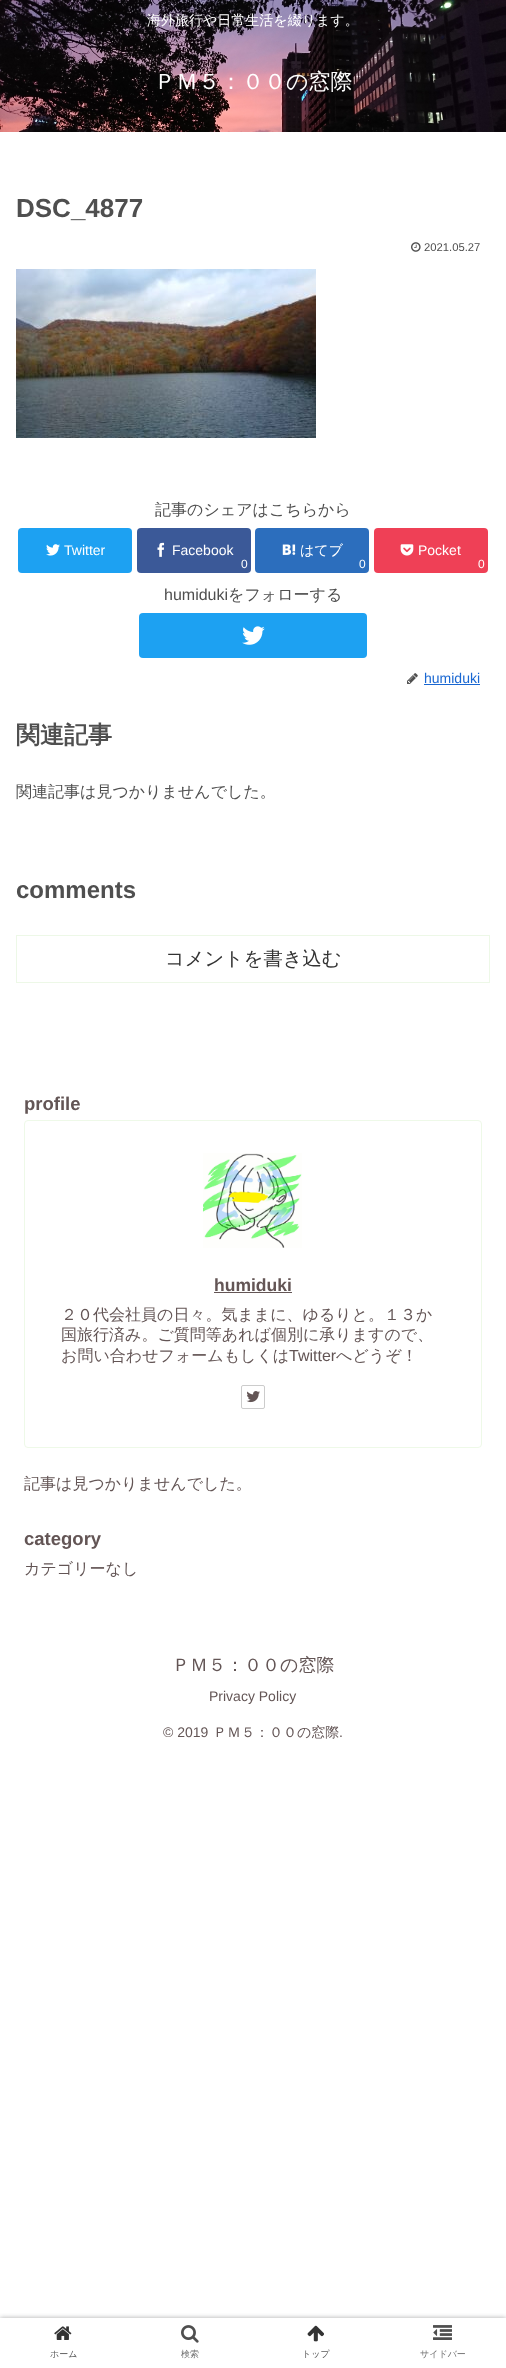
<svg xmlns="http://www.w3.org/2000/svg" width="506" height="2368">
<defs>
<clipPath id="clip1"><rect x="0" y="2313" width="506" height="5"/></clipPath>
</defs>
<rect width="100%" height="100%" fill="#fff"/>
<image x="0" y="0" width="506" height="132" href="media/1.png"/>
<text x="147" y="25" style="font-family:WenQuanYi Zen Hei;font-size:14px;font-weight:500;fill:#fff">海外旅行や日常生活を綴ります。</text>
<text x="154" y="89" style="font-family:WenQuanYi Zen Hei;font-size:22px;font-weight:500;fill:#fff">ＰＭ５：００の窓際</text>
<text x="16" y="217" style="font-family:Liberation Sans;font-size:26px;font-weight:bold;fill:#4f4f4f">DSC_4877</text>
<image x="411" y="242" width="10" height="10" href="media/2.png"/>
<text x="424" y="251" style="font-family:Liberation Sans;font-size:11.25px;fill:#4f4f4f">2021.05.27</text>
<image x="16" y="269" width="300" height="169" href="media/3.png"/>
<text x="155" y="515" style="font-family:WenQuanYi Zen Hei;font-size:16px;font-weight:500;fill:#4f4f4f">記事のシェアはこちらから</text>
<rect x="18" y="528" width="114" height="45" rx="4" fill="#1da1f2"/>
<image x="46" y="544" width="14" height="12" href="media/4.png"/>
<text x="64" y="555" style="font-family:Liberation Sans;font-size:14px;fill:#fff">Twitter</text>
<rect x="137" y="528" width="114" height="45" rx="4" fill="#3b5998"/>
<image x="157" y="542" width="8" height="15" href="media/5.png"/>
<text x="172" y="555" style="font-family:Liberation Sans;font-size:14px;fill:#fff">Facebook</text>
<text x="241" y="568" style="font-family:Liberation Sans;font-size:12px;fill:#fff">0</text>
<rect x="255" y="528" width="114" height="45" rx="4" fill="#2c6ebd"/>
<image x="282" y="544" width="14" height="11" href="media/6.png"/>
<text x="300" y="555" style="font-family:WenQuanYi Zen Hei;font-size:14px;font-weight:500;fill:#fff">はてブ</text>
<text x="359" y="568" style="font-family:Liberation Sans;font-size:12px;fill:#fff">0</text>
<rect x="374" y="528" width="114" height="45" rx="4" fill="#ef4056"/>
<image x="400" y="544" width="14" height="12" href="media/7.png"/>
<text x="418" y="555" style="font-family:Liberation Sans;font-size:14px;fill:#fff">Pocket</text>
<text x="478" y="568" style="font-family:Liberation Sans;font-size:12px;fill:#fff">0</text>
<text x="164" y="600" style="font-family:Liberation Sans;font-size:16px;fill:#4f4f4f">humiduki</text>
<text x="228" y="600" style="font-family:WenQuanYi Zen Hei;font-size:16px;font-weight:500;fill:#4f4f4f">をフォローする</text>
<rect x="139" y="613" width="228" height="45" rx="4" fill="#1da1f2"/>
<image x="242" y="626" width="23" height="19" href="media/8.png"/>
<image x="407" y="673" width="11" height="11" href="media/9.png"/>
<text x="424" y="683" style="font-family:Liberation Sans;font-size:14px;fill:#1967d2">humiduki</text>
<rect x="424" y="684" width="56" height="1" fill="#1967d2"/>
<text x="16" y="743" style="font-family:WenQuanYi Zen Hei;font-size:24px;font-weight:bold;fill:#4f4f4f">関連記事</text>
<text x="16" y="797" style="font-family:WenQuanYi Zen Hei;font-size:16px;font-weight:500;fill:#4f4f4f">関連記事は見つかりませんでした。</text>
<text x="16" y="898" style="font-family:Liberation Sans;font-size:24px;font-weight:bold;fill:#4f4f4f">comments</text>
<rect x="16.5" y="935.5" width="473" height="47" fill="none" stroke="#edf8e7"/>
<text x="165" y="965" style="font-family:WenQuanYi Zen Hei;font-size:19.25px;font-weight:500;fill:#333">コメントを書き込む</text>
<text x="24" y="1110" style="font-family:Liberation Sans;font-size:18.5px;font-weight:bold;fill:#635555">profile</text>
<rect x="24.5" y="1120.5" width="457" height="327" rx="3.5" fill="none" stroke="#eef9e8"/>
<image x="203" y="1153" width="99" height="95" href="media/10.png"/>
<text x="214" y="1291" style="font-family:Liberation Sans;font-size:17.5px;font-weight:bold;fill:#635555">humiduki</text>
<rect x="214" y="1292" width="78" height="1" fill="#635555"/>
<text x="61" y="1320" style="font-family:WenQuanYi Zen Hei;font-size:16px;font-weight:500;fill:#635555">２０代会社員の日々。気ままに、ゆるりと。１３か</text>
<text x="61" y="1340" style="font-family:WenQuanYi Zen Hei;font-size:16px;font-weight:500;fill:#635555">国旅行済み。ご質問等あれば個別に承りますので、</text>
<text x="61" y="1361" style="font-family:WenQuanYi Zen Hei;font-size:16px;font-weight:500;fill:#635555">お問い合わせフォームもしくは</text>
<text x="289" y="1361" style="font-family:Liberation Sans;font-size:16px;fill:#635555">Twitter</text>
<text x="336" y="1361" style="font-family:WenQuanYi Zen Hei;font-size:16px;font-weight:500;fill:#635555">へどうぞ！</text>
<rect x="241.5" y="1385.5" width="23" height="23" rx="1.5" fill="none" stroke="#ccc"/>
<image x="246" y="1391" width="14" height="12" href="media/11.png"/>
<text x="24" y="1489" style="font-family:WenQuanYi Zen Hei;font-size:16px;font-weight:500;fill:#635555">記事は見つかりませんでした。</text>
<text x="24" y="1545" style="font-family:Liberation Sans;font-size:18.5px;font-weight:bold;fill:#635555">category</text>
<text x="24" y="1574" style="font-family:WenQuanYi Zen Hei;font-size:16px;font-weight:500;fill:#635555">カテゴリーなし</text>
<text x="172" y="1671" style="font-family:WenQuanYi Zen Hei;font-size:18px;font-weight:500;fill:#635555">ＰＭ５：００の窓際</text>
<text x="209" y="1701" style="font-family:Liberation Sans;font-size:14px;fill:#635555">Privacy Policy</text>
<text x="163" y="1737" style="font-family:Liberation Sans;font-size:14px;fill:#635555">© 2019</text>
<text x="213" y="1737" style="font-family:WenQuanYi Zen Hei;font-size:14px;font-weight:500;fill:#635555">ＰＭ５：００の窓際</text>
<text x="339" y="1737" style="font-family:Liberation Sans;font-size:14px;fill:#635555">.</text>
<g clip-path="url(#clip1)">
<rect y="2318" width="506" height="50" fill="#a9a9a9" filter="blur(2.5px)"/>
</g>
<image x="54" y="2326" width="18" height="14" href="media/12.png"/>
<text x="50" y="2357" style="font-family:WenQuanYi Zen Hei;font-size:9px;font-weight:500;fill:#5c5c5c">ホーム</text>
<image x="181" y="2325" width="18" height="18" href="media/13.png"/>
<text x="181" y="2357" style="font-family:WenQuanYi Zen Hei;font-size:9px;font-weight:500;fill:#727272">検索</text>
<image x="307" y="2325" width="17" height="17" href="media/14.png"/>
<text x="302" y="2357" style="font-family:WenQuanYi Zen Hei;font-size:9px;font-weight:500;fill:#5c5c5c">トップ</text>
<image x="433" y="2325" width="19" height="15" href="media/15.png"/>
<text x="420" y="2357" style="font-family:WenQuanYi Zen Hei;font-size:9px;font-weight:500;fill:#727272">サイドバー</text>
</svg>
